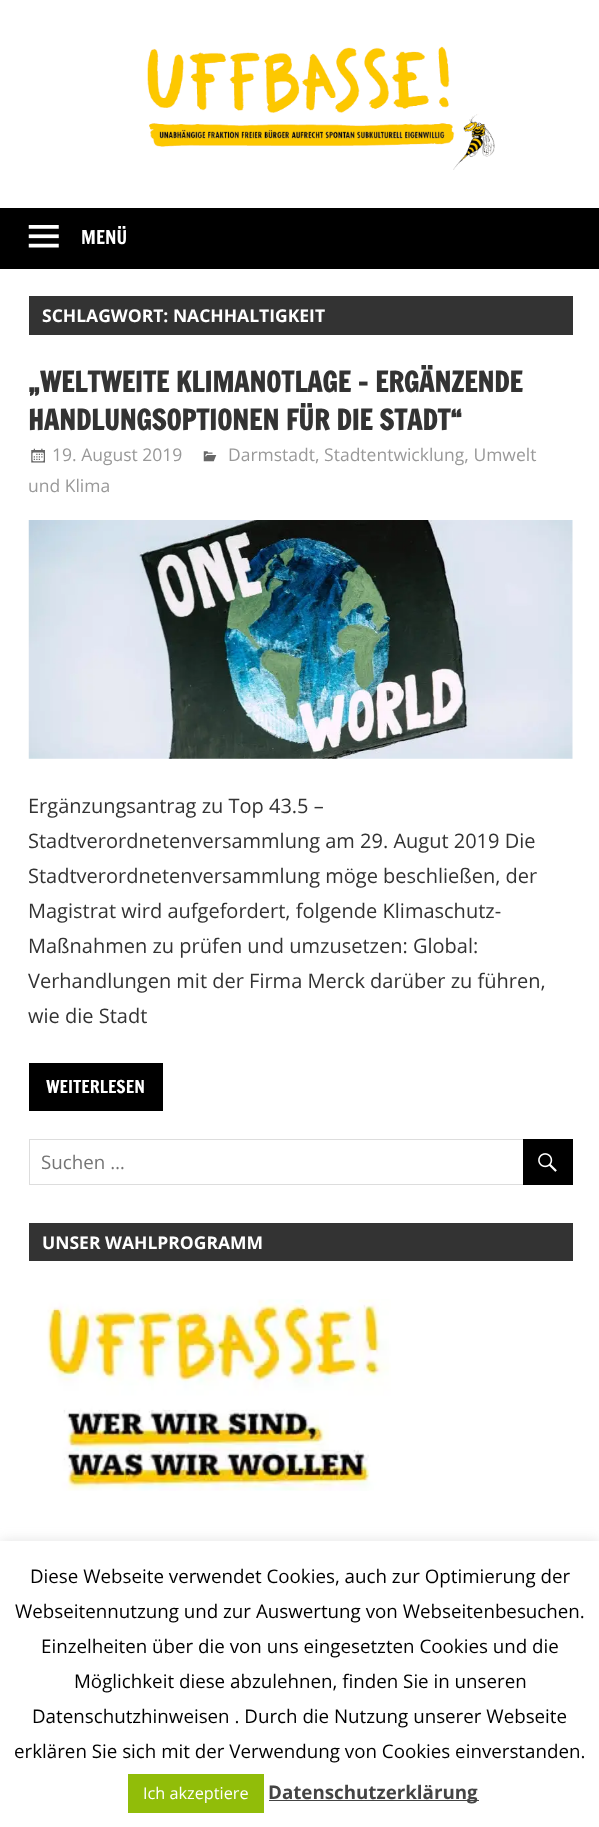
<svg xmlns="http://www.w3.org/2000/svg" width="599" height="1827">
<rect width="100%" height="100%" fill="#fff"/>
<image x="147" y="46" width="348" height="124" href="media/1.png"/>
<rect y="208" width="599" height="61" fill="#000"/>
<image x="28" y="225" width="31" height="23" href="media/2.png"/>
<text x="81" y="244" style="font-family:Francois One;font-size:18.75px;fill:#fff">MENÜ</text>
<rect x="29" y="296" width="544" height="39" fill="#333"/>
<text x="42" y="322" style="font-family:Open Sans;font-size:17.5px;font-weight:bold;fill:#fff">SCHLAGWORT: NACHHALTIGKEIT</text>
<text x="28" y="392" style="font-family:Francois One;font-size:27.5px;font-weight:bold;fill:#333">„WELTWEITE KLIMANOTLAGE – ERGÄNZENDE</text>
<text x="28" y="430" style="font-family:Francois One;font-size:27.5px;font-weight:bold;fill:#333">HANDLUNGSOPTIONEN FÜR DIE STADT“</text>
<image x="203" y="451" width="14" height="11" href="media/3.png"/>
<text x="228" y="461" style="font-family:Open Sans;font-size:17.5px;fill:#999">Darmstadt, Stadtentwicklung, Umwelt</text>
<text x="28" y="492" style="font-family:Open Sans;font-size:17.5px;fill:#999">und Klima</text>
<image x="31" y="448" width="14" height="15" href="media/4.png"/>
<text x="52" y="461" style="font-family:Open Sans;font-size:17.5px;fill:#999">19. August 2019</text>
<image x="28" y="520" width="545" height="239" href="media/5.png"/>
<text x="28" y="813" style="font-family:Open Sans;font-size:20px;fill:#333">Ergänzungsantrag zu Top 43.5 –</text>
<text x="28" y="848" style="font-family:Open Sans;font-size:20px;fill:#333">Stadtverordnetenversammlung am 29. Augut 2019 Die</text>
<text x="28" y="883" style="font-family:Open Sans;font-size:20px;fill:#333">Stadtverordnetenversammlung möge beschließen, der</text>
<text x="28" y="918" style="font-family:Open Sans;font-size:20px;fill:#333">Magistrat wird aufgefordert, folgende Klimaschutz-</text>
<text x="28" y="953" style="font-family:Open Sans;font-size:20px;fill:#333">Maßnahmen zu prüfen und umzusetzen: Global:</text>
<text x="28" y="988" style="font-family:Open Sans;font-size:20px;fill:#333">Verhandlungen mit der Firma Merck darüber zu führen,</text>
<text x="28" y="1023" style="font-family:Open Sans;font-size:20px;fill:#333">wie die Stadt</text>
<rect x="29" y="1063" width="134" height="48" fill="#000"/>
<text x="46" y="1093" style="font-family:Francois One;font-size:17.5px;fill:#fff">WEITERLESEN</text>
<rect x="29.5" y="1139.5" width="543" height="45" fill="none" stroke="#ddd"/>
<text x="41" y="1169" style="font-family:Open Sans;font-size:18.75px;fill:#757575">Suchen …</text>
<rect x="523" y="1139" width="50" height="46" fill="#000"/>
<image x="538" y="1153" width="19" height="19" href="media/6.png"/>
<rect x="29" y="1223" width="544" height="38" fill="#333"/>
<text x="42" y="1249" style="font-family:Open Sans;font-size:17.5px;font-weight:bold;fill:#fff">UNSER WAHLPROGRAMM</text>
<image x="47" y="1299" width="344" height="192" href="media/7.png"/>
<rect y="1540" width="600" height="286" fill="#acabab4d" filter="blur(6px)"/>
<rect y="1541" width="599" height="286" fill="#fff"/>
<text x="30" y="1583" style="font-family:Open Sans;font-size:18.75px;fill:#000">Diese Webseite verwendet Cookies, auch zur Optimierung der</text>
<text x="15" y="1618" style="font-family:Open Sans;font-size:18.75px;fill:#000">Webseitennutzung und zur Auswertung von Webseitenbesuchen.</text>
<text x="41" y="1653" style="font-family:Open Sans;font-size:18.75px;fill:#000">Einzelheiten über die von uns eingesetzten Cookies und die</text>
<text x="74" y="1688" style="font-family:Open Sans;font-size:18.75px;fill:#000">Möglichkeit diese abzulehnen, finden Sie in unseren</text>
<text x="32" y="1723" style="font-family:Open Sans;font-size:18.75px;fill:#000">Datenschutzhinweisen . Durch die Nutzung unserer Webseite</text>
<text x="14" y="1758" style="font-family:Open Sans;font-size:18.75px;fill:#000">erklären Sie sich mit der Verwendung von Cookies einverstanden.</text>
<rect x="128" y="1774" width="136" height="39" fill="#91bd09"/>
<text x="143" y="1799" style="font-family:Open Sans;font-size:16.25px;fill:#fff">Ich akzeptiere</text>
<rect x="269" y="1800" width="210" height="1" fill="#444"/>
<text x="268" y="1799" style="font-family:Open Sans;font-size:18.75px;font-weight:bold;fill:#444">Datenschutzerklärung</text>
</svg>
